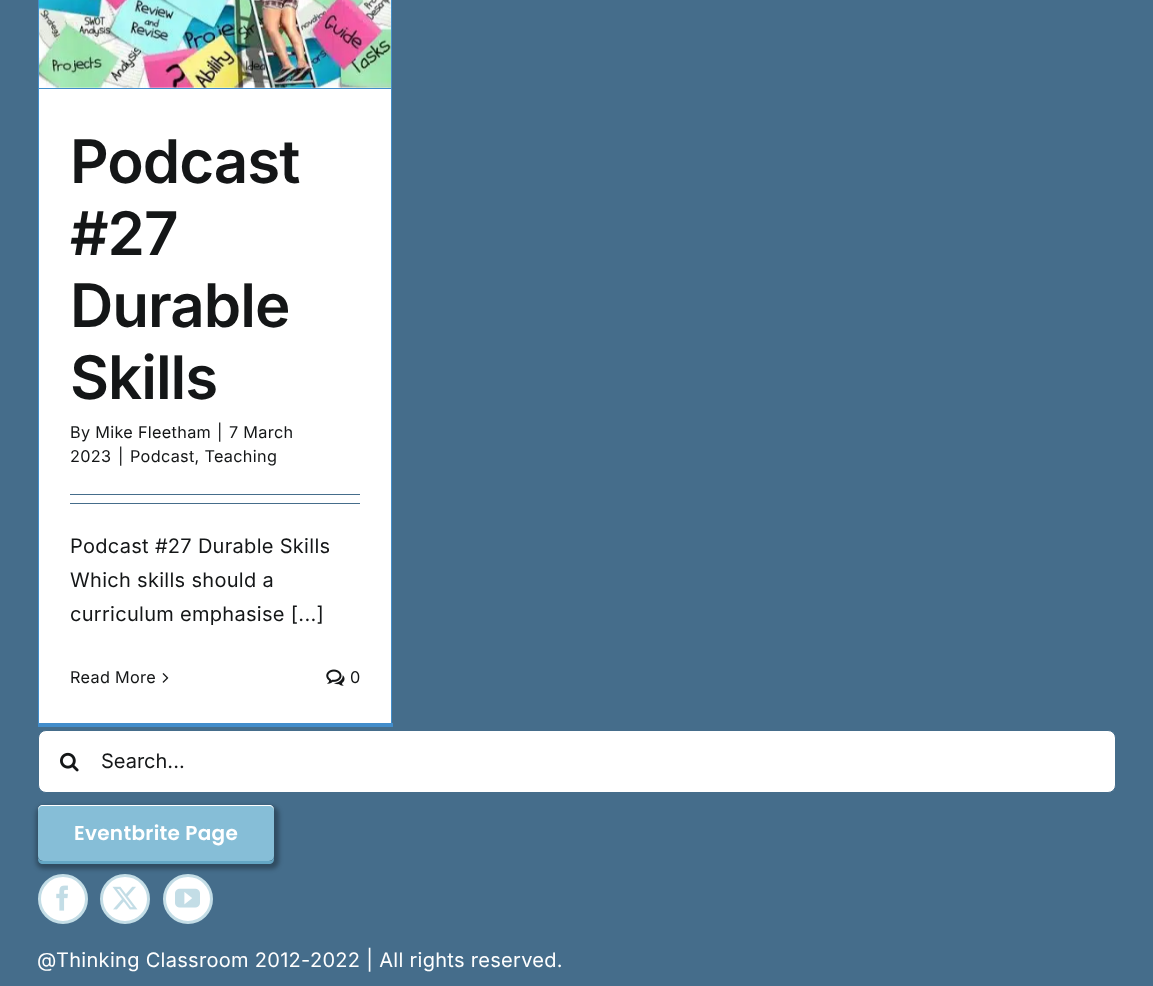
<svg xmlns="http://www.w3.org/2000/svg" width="1153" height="986">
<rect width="100%" height="100%" fill="#456d8b"/>
<rect x="39" y="87" width="352" height="636" fill="#fff"/>
<rect x="391" width="1" height="726" fill="#428dcb"/>
<rect x="38" y="723" width="355" height="4" fill="#428dcb"/>
<rect x="38" width="1" height="726" fill="#428dcb"/>
<rect x="39" y="88" width="352" height="1" fill="#428dcb"/>
<image x="39" y="0" width="352" height="88" href="media/1.png"/>
<text x="70" y="183" style="font-family:Inter;font-size:60px;font-weight:600;letter-spacing:-1px;fill:#141617">Podcast</text>
<text x="70" y="255" style="font-family:Inter;font-size:60px;font-weight:600;letter-spacing:-1px;fill:#141617">#27</text>
<text x="70" y="327" style="font-family:Inter;font-size:60px;font-weight:600;letter-spacing:-1px;fill:#141617">Durable</text>
<text x="70" y="399" style="font-family:Inter;font-size:60px;font-weight:600;letter-spacing:-1px;fill:#141617">Skills</text>
<text x="70" y="438" style="font-family:Inter;font-size:16.25px;letter-spacing:0.3px;fill:#141617">By Mike Fleetham</text>
<text x="217" y="438" style="font-family:Inter;font-size:16.25px;letter-spacing:0.3px;fill:#141617">|</text>
<text x="229" y="438" style="font-family:Inter;font-size:16.25px;letter-spacing:0.3px;fill:#141617">7 March</text>
<text x="70" y="462" style="font-family:Inter;font-size:16.25px;letter-spacing:0.3px;fill:#141617">2023</text>
<text x="118" y="462" style="font-family:Inter;font-size:16.25px;letter-spacing:0.3px;fill:#141617">|</text>
<text x="130" y="462" style="font-family:Inter;font-size:16.25px;letter-spacing:0.3px;fill:#141617">Podcast, Teaching</text>
<rect x="70" y="494" width="290" height="1" fill="#456d8b"/>
<rect x="70" y="503" width="290" height="1" fill="#456d8b"/>
<text x="70" y="553" style="font-family:Inter;font-size:20px;letter-spacing:0.3px;fill:#141617">Podcast #27 Durable Skills</text>
<text x="70" y="587" style="font-family:Inter;font-size:20px;letter-spacing:0.3px;fill:#141617">Which skills should a</text>
<text x="70" y="621" style="font-family:Inter;font-size:20px;letter-spacing:0.3px;fill:#141617">curriculum emphasise [...]</text>
<text x="70" y="683" style="font-family:Inter;font-size:16.25px;letter-spacing:0.3px;fill:#141617">Read More</text>
<image x="162" y="673" width="7" height="10" href="media/2.png"/>
<image x="326" y="669" width="19" height="17" href="media/3.png"/>
<text x="350" y="683" style="font-family:Inter;font-size:16.25px;letter-spacing:0.3px;fill:#141617">0</text>
<rect x="38.5" y="730.5" width="1077" height="62" rx="7.5" fill="#fff" stroke="#456d8b"/>
<image x="60" y="752" width="19" height="20" href="media/4.png"/>
<text x="101" y="768" style="font-family:Inter;font-size:20px;fill:#141617">Search...</text>
<rect x="36" y="806" width="243" height="63" rx="8" fill="#0000004d" filter="blur(2px)"/>
<path d="M38 858v1c0 3 2 5 5 5h226c3 0 5-2 5-5v-48v45c0 3-2 5-5 5h-227c-1 0-3-1-4-3z" fill="#64a6c4"/>
<rect x="38" y="805" width="236" height="56" rx="5" fill="#86bed7"/>
<path d="M42 806h227c3 0 5 2 5 5v-1c0-3-2-5-5-5h-226c-3 0-5 2-5 5v1c0-3 2-5 4-5z" fill="#fff"/>
<text x="74" y="840" style="font-family:Poppins;font-size:20px;font-weight:600;letter-spacing:0.3px;fill:#fff">Eventbrite Page</text>
<circle cx="63" cy="899" r="23.5" fill="#fff" stroke="#c3dde6" stroke-width="3"/>
<image x="56" y="885" width="12" height="26" href="media/5.png"/>
<circle cx="125" cy="899" r="23.5" fill="#fff" stroke="#c3dde6" stroke-width="3"/>
<image x="112" y="886" width="26" height="24" href="media/6.png"/>
<circle cx="188" cy="899" r="23.5" fill="#fff" stroke="#c3dde6" stroke-width="3"/>
<image x="175" y="888" width="25" height="20" href="media/7.png"/>
<text x="37" y="967" style="font-family:Inter;font-size:20px;letter-spacing:0.3px;fill:#fff">@Thinking Classroom 2012-2022 | All rights reserved.</text>
</svg>
